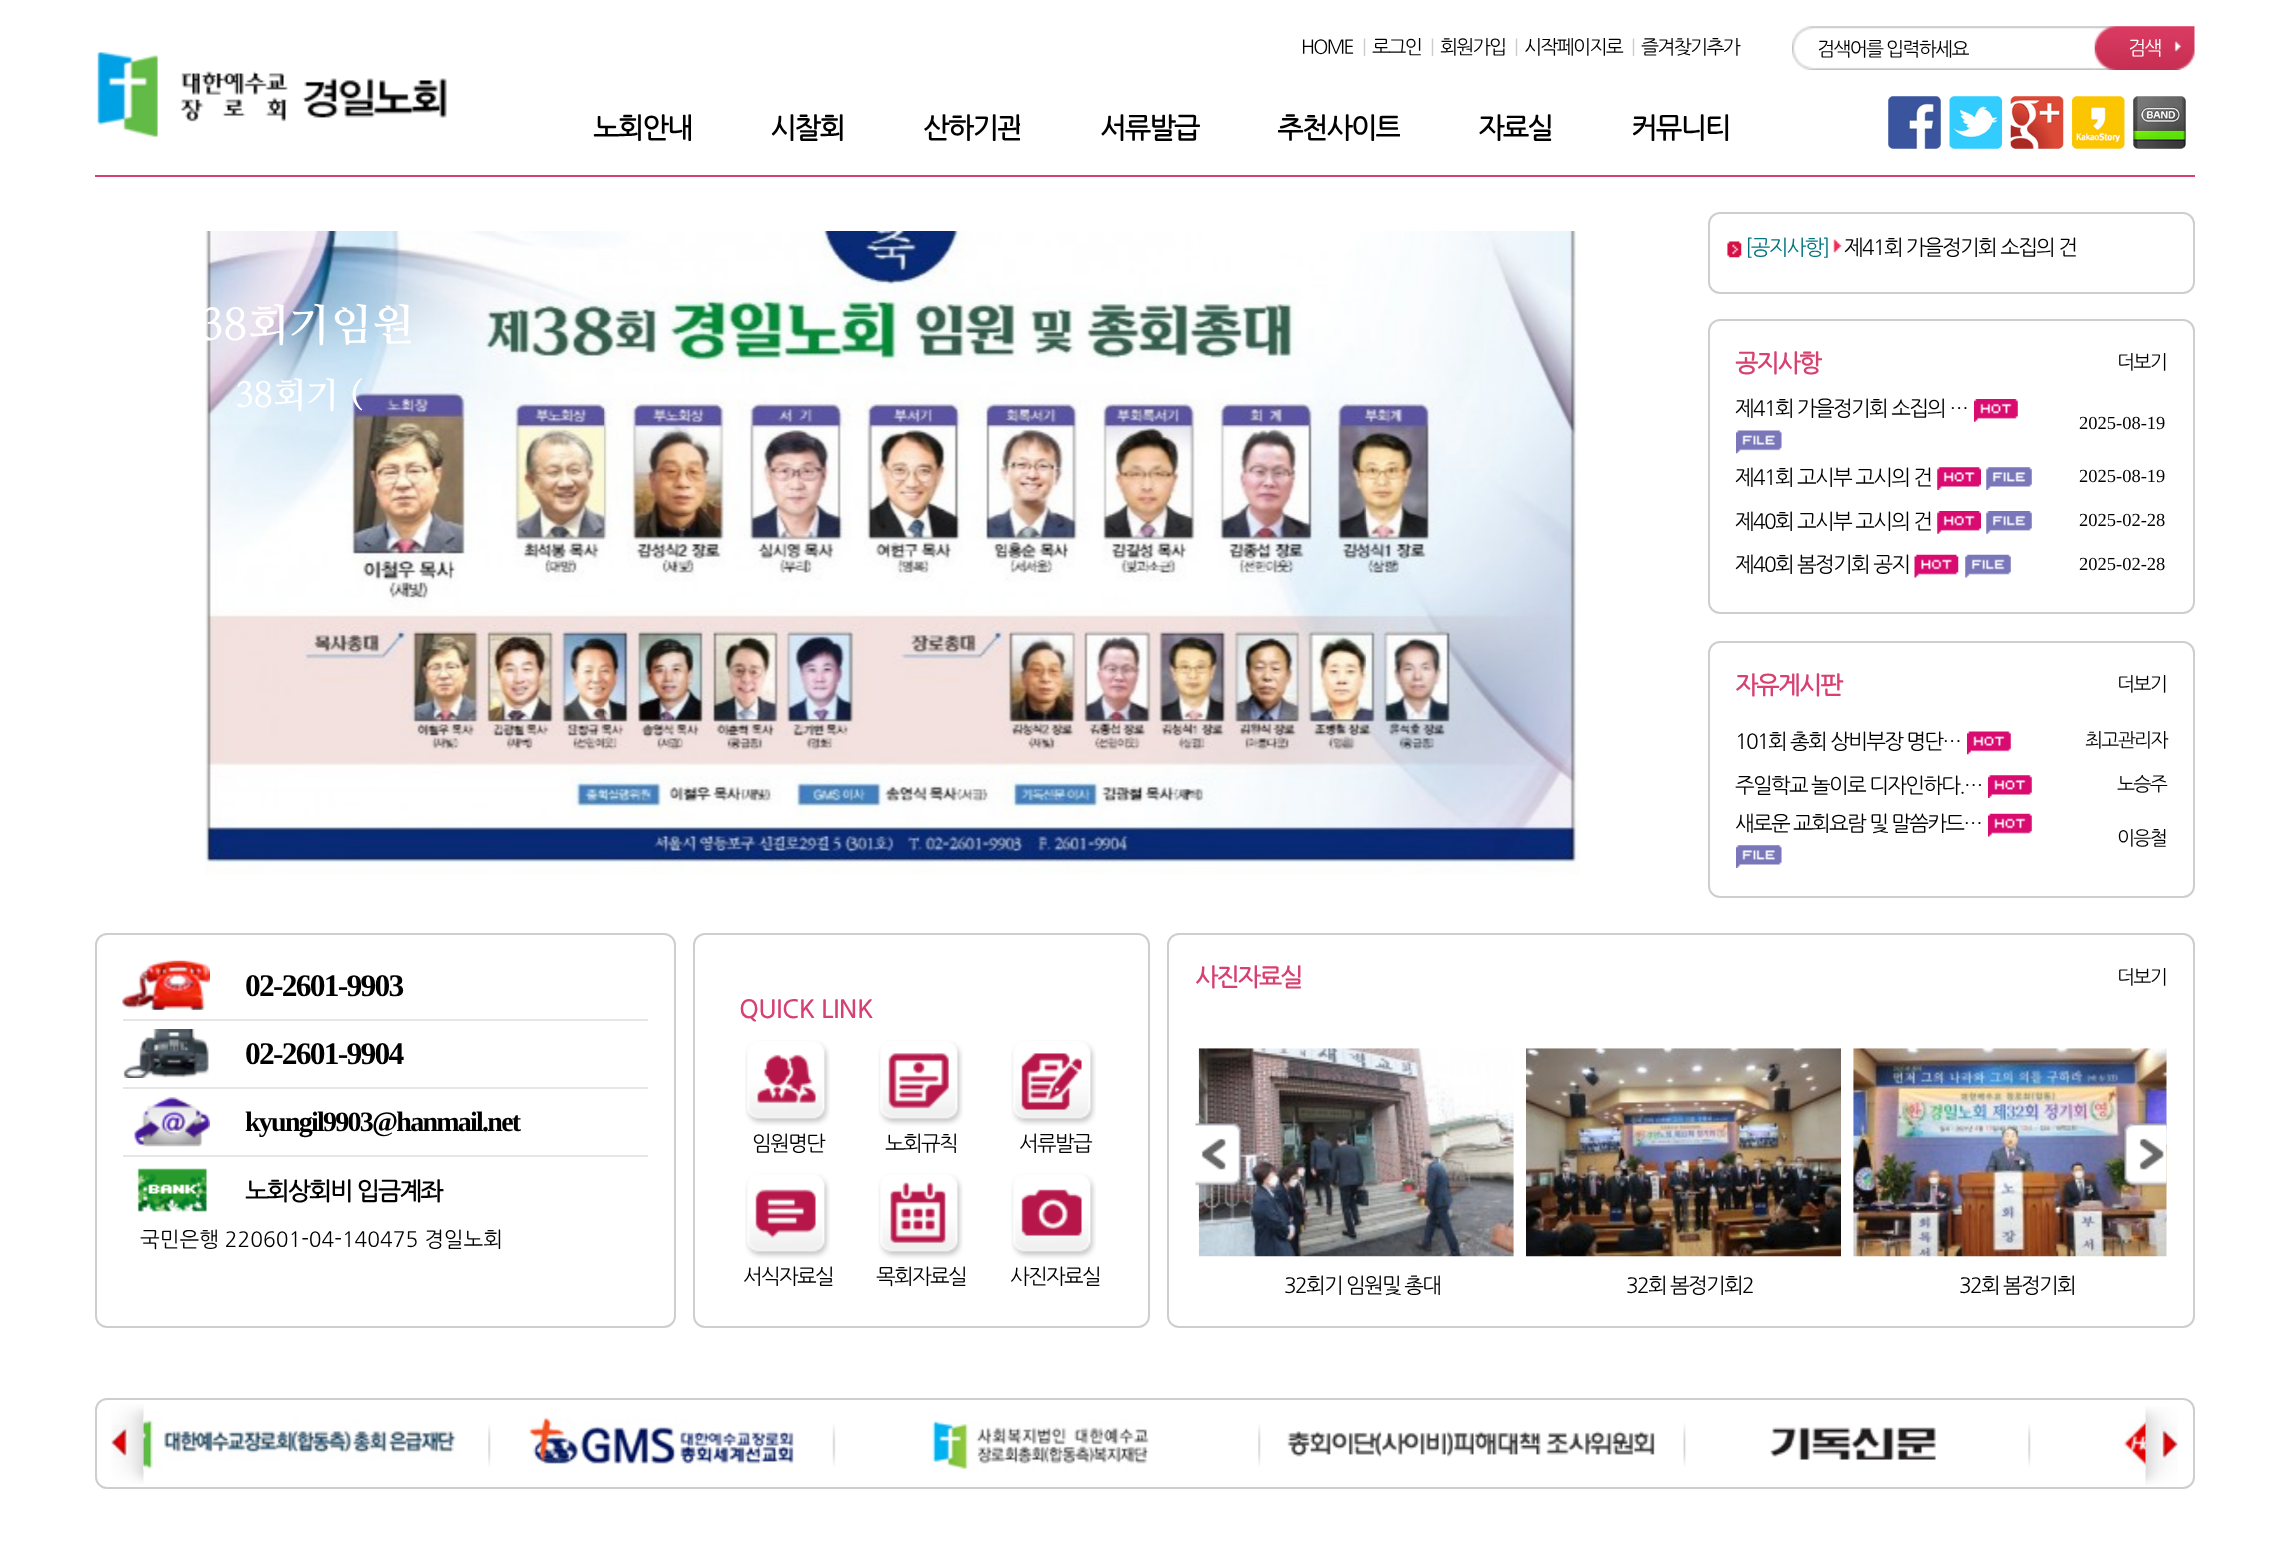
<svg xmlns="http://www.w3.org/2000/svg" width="2289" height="1565">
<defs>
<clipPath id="clip1"><rect x="922" y="103" width="98" height="62"/></clipPath>
<clipPath id="clip2"><rect x="1278" y="103" width="122" height="62"/></clipPath>
</defs>
<rect width="100%" height="100%" fill="#fff"/>
<text x="1301" y="53" style="font-family:NanumGothic;font-size:19.25px;letter-spacing:-1.75px;fill:#000">HOME</text>
<text x="1362" y="53" style="font-family:NanumGothic;font-size:19.25px;letter-spacing:-1.75px;fill:#ccc">|</text>
<text x="1372" y="53" style="font-family:NanumGothic;font-size:19.25px;letter-spacing:-1.75px;fill:#000">로그인</text>
<text x="1430" y="53" style="font-family:NanumGothic;font-size:19.25px;letter-spacing:-1.75px;fill:#ccc">|</text>
<text x="1440" y="53" style="font-family:NanumGothic;font-size:19.25px;letter-spacing:-1.75px;fill:#000">회원가입</text>
<text x="1514" y="53" style="font-family:NanumGothic;font-size:19.25px;letter-spacing:-1.75px;fill:#ccc">|</text>
<text x="1524" y="53" style="font-family:NanumGothic;font-size:19.25px;letter-spacing:-1.75px;fill:#000">시작페이지로</text>
<text x="1631" y="53" style="font-family:NanumGothic;font-size:19.25px;letter-spacing:-1.75px;fill:#ccc">|</text>
<text x="1641" y="53" style="font-family:NanumGothic;font-size:19.25px;letter-spacing:-1.75px;fill:#000">즐겨찾기추가</text>
<image x="1814" y="26" width="281" height="44" href="media/2.png"/>
<image x="1792" y="26" width="23" height="44" href="media/1.png"/>
<text x="1817" y="55" style="font-family:NanumGothic;font-size:19.25px;letter-spacing:-1.75px;fill:#000">검색어를 입력하세요</text>
<image x="2094" y="26" width="101" height="44" href="media/3.png"/>
<text x="2128" y="54" style="font-family:NanumGothic;font-size:19.25px;letter-spacing:-1.75px;fill:#fff">검색</text>
<image x="97" y="52" width="350" height="85" href="media/4.png"/>
<text x="593" y="137" style="font-family:NanumGothic;font-size:28px;font-weight:bold;letter-spacing:-1.75px;fill:#000">노회안내</text>
<text x="770" y="137" style="font-family:NanumGothic;font-size:28px;font-weight:bold;letter-spacing:-1.75px;fill:#000">시찰회</text>
<g clip-path="url(#clip1)">
<text x="923" y="137" style="font-family:NanumGothic;font-size:28px;font-weight:bold;letter-spacing:-1.75px;fill:#000">산하기관</text>
</g>
<text x="1100" y="137" style="font-family:NanumGothic;font-size:28px;font-weight:bold;letter-spacing:-1.75px;fill:#000">서류발급</text>
<g clip-path="url(#clip2)">
<text x="1277" y="137" style="font-family:NanumGothic;font-size:28px;font-weight:bold;letter-spacing:-1.75px;fill:#000">추천사이트</text>
</g>
<text x="1478" y="137" style="font-family:NanumGothic;font-size:28px;font-weight:bold;letter-spacing:-1.75px;fill:#000">자료실</text>
<text x="1631" y="137" style="font-family:NanumGothic;font-size:28px;font-weight:bold;letter-spacing:-1.75px;fill:#000">커뮤니티</text>
<image x="1888" y="96" width="53" height="53" href="media/5.png"/>
<image x="1949" y="96" width="53" height="53" href="media/6.png"/>
<image x="2010" y="96" width="54" height="53" href="media/7.png"/>
<image x="2072" y="96" width="53" height="53" href="media/8.png"/>
<image x="2133" y="96" width="53" height="53" href="media/9.png"/>
<rect x="95" y="175" width="2100" height="2" fill="#d64172"/>
<image x="205" y="231" width="1375" height="644" href="media/10.png"/>
<text x="200" y="340" style="font-family:NanumMyeongjo;font-size:43.75px;font-weight:bold;fill:#fff">38회기임원</text>
<text x="235" y="407" style="font-family:NanumMyeongjo;font-size:35px;font-weight:bold;fill:#fff">38회기 (</text>
<rect x="1709" y="213" width="485" height="80" rx="11" fill="none" stroke="#cecece" stroke-width="2"/>
<image x="1727" y="241" width="15" height="17" href="media/11.png"/>
<text x="1745" y="254" style="font-family:NanumGothic;font-size:21px;letter-spacing:-1.75px;fill:#00757f">[공지사항]</text>
<image x="1833" y="239" width="9" height="14" href="media/12.png"/>
<text x="1844" y="254" style="font-family:NanumGothic;font-size:21px;letter-spacing:-1.75px;fill:#000">제41회 가을정기회 소집의 건</text>
<rect x="1709" y="320" width="485" height="293" rx="11" fill="none" stroke="#cecece" stroke-width="2"/>
<text x="1735" y="371" style="font-family:NanumGothic;font-size:24.5px;font-weight:bold;letter-spacing:-1.75px;fill:#d64172">공지사항</text>
<text x="2117" y="368" style="font-family:NanumGothic;font-size:19.25px;letter-spacing:-1.75px;fill:#000">더보기</text>
<text x="1735" y="415" style="font-family:NanumGothic;font-size:21px;letter-spacing:-1.75px;fill:#000">제41회 가을정기회 소집의 …</text>
<image x="1974" y="399" width="44" height="23" href="media/13.png"/>
<image x="1736" y="430" width="46" height="24" href="media/14.png"/>
<text x="2079" y="429" style="font-family:Liberation Serif;font-size:18.5px;fill:#000">2025-08-19</text>
<text x="1735" y="484" style="font-family:NanumGothic;font-size:21px;letter-spacing:-1.75px;fill:#000">제41회 고시부 고시의 건</text>
<image x="1937" y="467" width="44" height="23" href="media/15.png"/>
<image x="1986" y="467" width="46" height="23" href="media/16.png"/>
<text x="2079" y="482" style="font-family:Liberation Serif;font-size:18.5px;fill:#000">2025-08-19</text>
<text x="1735" y="528" style="font-family:NanumGothic;font-size:21px;letter-spacing:-1.75px;fill:#000">제40회 고시부 고시의 건</text>
<image x="1937" y="511" width="44" height="23" href="media/17.png"/>
<image x="1986" y="511" width="46" height="23" href="media/18.png"/>
<text x="2079" y="526" style="font-family:Liberation Serif;font-size:18.5px;fill:#000">2025-02-28</text>
<text x="1735" y="571" style="font-family:NanumGothic;font-size:21px;letter-spacing:-1.75px;fill:#000">제40회 봄정기회 공지</text>
<image x="1914" y="554" width="45" height="24" href="media/19.png"/>
<image x="1965" y="554" width="46" height="24" href="media/20.png"/>
<text x="2079" y="570" style="font-family:Liberation Serif;font-size:18.5px;fill:#000">2025-02-28</text>
<rect x="1709" y="642" width="485" height="255" rx="11" fill="none" stroke="#cecece" stroke-width="2"/>
<text x="1735" y="693" style="font-family:NanumGothic;font-size:24.5px;font-weight:bold;letter-spacing:-1.75px;fill:#d64172">자유게시판</text>
<text x="2117" y="690" style="font-family:NanumGothic;font-size:19.25px;letter-spacing:-1.75px;fill:#000">더보기</text>
<text x="1735" y="748" style="font-family:NanumGothic;font-size:21px;letter-spacing:-1.75px;fill:#000">101회 총회 상비부장 명단…</text>
<image x="1967" y="731" width="44" height="24" href="media/21.png"/>
<text x="2085" y="746" style="font-family:NanumGothic;font-size:19.25px;letter-spacing:-1.75px;fill:#000">최고관리자</text>
<text x="1735" y="792" style="font-family:NanumGothic;font-size:21px;letter-spacing:-1.75px;fill:#000">주일학교 놀이로 디자인하다.…</text>
<image x="1988" y="775" width="44" height="23" href="media/22.png"/>
<text x="2117" y="790" style="font-family:NanumGothic;font-size:19.25px;letter-spacing:-1.75px;fill:#000">노승주</text>
<text x="1735" y="830" style="font-family:NanumGothic;font-size:21px;letter-spacing:-1.75px;fill:#000">새로운 교회요람 및 말씀카드…</text>
<image x="1988" y="813" width="44" height="24" href="media/23.png"/>
<image x="1736" y="845" width="46" height="23" href="media/24.png"/>
<text x="2117" y="844" style="font-family:NanumGothic;font-size:19.25px;letter-spacing:-1.75px;fill:#000">이응철</text>
<rect x="96" y="934" width="579" height="393" rx="11" fill="none" stroke="#cecece" stroke-width="2"/>
<image x="122" y="960" width="88" height="50" href="media/25.png"/>
<text x="245" y="996" style="font-family:Liberation Serif;font-size:31.5px;font-weight:bold;letter-spacing:-1.75px;fill:#000">02-2601-9903</text>
<rect x="123" y="1019" width="525" height="2" fill="#e6e6e6"/>
<image x="123" y="1029" width="86" height="49" href="media/26.png"/>
<text x="245" y="1064" style="font-family:Liberation Serif;font-size:31.5px;font-weight:bold;letter-spacing:-1.75px;fill:#000">02-2601-9904</text>
<rect x="123" y="1087" width="525" height="2" fill="#e6e6e6"/>
<image x="133" y="1097" width="77" height="50" href="media/27.png"/>
<text x="245" y="1131" style="font-family:Liberation Serif;font-size:28px;font-weight:bold;letter-spacing:-1.75px;fill:#000">kyungil9903@hanmail.net</text>
<rect x="123" y="1155" width="525" height="2" fill="#e6e6e6"/>
<image x="137" y="1168" width="70" height="44" href="media/28.png"/>
<text x="245" y="1199" style="font-family:NanumGothic;font-size:24.5px;font-weight:bold;letter-spacing:-1.75px;fill:#000">노회상회비 입금계좌</text>
<text x="140" y="1246" style="font-family:NanumGothic;font-size:21px;fill:#000">국민은행 220601-04-140475 경일노회</text>
<rect x="694" y="934" width="455" height="393" rx="11" fill="none" stroke="#cecece" stroke-width="2"/>
<text x="739" y="1017" style="font-family:NanumGothic;font-size:24.5px;font-weight:bold;fill:#d64172">QUICK LINK</text>
<image x="745" y="1040" width="85" height="86" href="media/29.png"/>
<text x="752" y="1150" style="font-family:NanumGothic;font-size:21px;letter-spacing:-1.75px;fill:#000">임원명단</text>
<image x="878" y="1040" width="85" height="86" href="media/30.png"/>
<text x="885" y="1150" style="font-family:NanumGothic;font-size:21px;letter-spacing:-1.75px;fill:#000">노회규칙</text>
<image x="1011" y="1040" width="85" height="86" href="media/31.png"/>
<text x="1019" y="1150" style="font-family:NanumGothic;font-size:21px;letter-spacing:-1.75px;fill:#000">서류발급</text>
<image x="745" y="1173" width="85" height="86" href="media/32.png"/>
<text x="743" y="1283" style="font-family:NanumGothic;font-size:21px;letter-spacing:-1.75px;fill:#000">서식자료실</text>
<image x="878" y="1173" width="85" height="86" href="media/33.png"/>
<text x="876" y="1283" style="font-family:NanumGothic;font-size:21px;letter-spacing:-1.75px;fill:#000">목회자료실</text>
<image x="1011" y="1173" width="85" height="86" href="media/34.png"/>
<text x="1010" y="1283" style="font-family:NanumGothic;font-size:21px;letter-spacing:-1.75px;fill:#000">사진자료실</text>
<rect x="1168" y="934" width="1026" height="393" rx="11" fill="none" stroke="#cecece" stroke-width="2"/>
<text x="1195" y="985" style="font-family:NanumGothic;font-size:24.5px;font-weight:bold;letter-spacing:-1.75px;fill:#d64172">사진자료실</text>
<text x="2117" y="983" style="font-family:NanumGothic;font-size:19.25px;letter-spacing:-1.75px;fill:#000">더보기</text>
<image x="1198" y="1048" width="316" height="209" href="media/37.png"/>
<image x="1195" y="1120" width="51" height="68" href="media/35.png"/>
<image x="1853" y="1048" width="314" height="209" href="media/39.png"/>
<image x="2119" y="1120" width="48" height="68" href="media/36.png"/>
<text x="1284" y="1292" style="font-family:NanumGothic;font-size:21px;letter-spacing:-1.75px;fill:#000">32회기 임원및 총대</text>
<image x="1526" y="1048" width="315" height="209" href="media/38.png"/>
<text x="1626" y="1292" style="font-family:NanumGothic;font-size:21px;letter-spacing:-1.75px;fill:#000">32회 봄정기회2</text>
<text x="1959" y="1292" style="font-family:NanumGothic;font-size:21px;letter-spacing:-1.75px;fill:#000">32회 봄정기회</text>
<rect x="96" y="1399" width="2098" height="89" rx="11" fill="none" stroke="#cecece" stroke-width="2"/>
<image x="111" y="1404" width="33" height="80" href="media/40.png"/>
<image x="143" y="1417" width="313" height="53" href="media/41.png"/>
<image x="488" y="1424" width="3" height="43" href="media/42.png"/>
<image x="529" y="1417" width="265" height="47" href="media/43.png"/>
<image x="832" y="1423" width="4" height="44" href="media/44.png"/>
<image x="932" y="1420" width="217" height="50" href="media/45.png"/>
<image x="1258" y="1424" width="3" height="43" href="media/42.png"/>
<image x="1287" y="1431" width="368" height="26" href="media/46.png"/>
<image x="1683" y="1423" width="3" height="44" href="media/47.png"/>
<image x="1770" y="1427" width="166" height="33" href="media/48.png"/>
<image x="2028" y="1424" width="3" height="43" href="media/42.png"/>
<image x="2145" y="1406" width="33" height="80" href="media/50.png"/>
<image x="2120" y="1418" width="26" height="52" href="media/49.png"/>
</svg>
